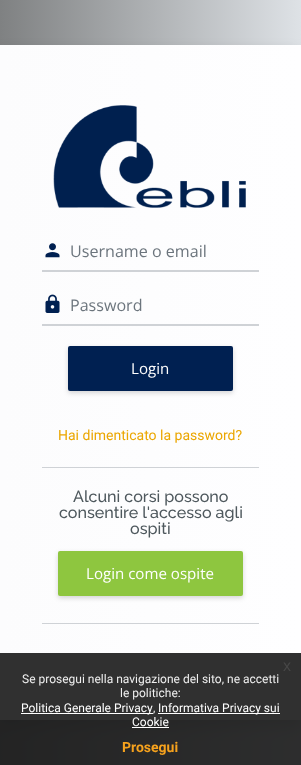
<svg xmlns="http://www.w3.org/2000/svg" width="301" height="765">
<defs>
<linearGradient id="g1" gradientUnits="userSpaceOnUse" x1="0" y1="383" x2="301" y2="383"><stop offset="0" stop-color="#7f8182"/><stop offset="1" stop-color="#dee2e6"/></linearGradient>
<linearGradient id="g2" gradientUnits="userSpaceOnUse" x1="0" y1="383" x2="301" y2="383"><stop offset="0" stop-color="#fcfcfd"/><stop offset="1" stop-color="#fefeff"/></linearGradient>
<clipPath id="clip1"><path d="M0 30h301v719h-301zm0 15h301v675h-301z" clip-rule="evenodd"/></clipPath>
</defs>
<rect width="100%" height="100%" fill="#fff"/>
<rect width="301" height="765" fill="url(#g1)"/>
<rect y="45" width="301" height="675" fill="url(#g2)"/>
<g clip-path="url(#clip1)">
<rect y="52" width="301" height="675" fill="#00000026" filter="blur(7px)"/>
</g>
<image x="53" y="105" width="193" height="103" href="media/1.png"/>
<image x="45" y="243" width="15" height="15" href="media/2.png"/>
<rect x="42" y="270" width="217" height="2" fill="#cfd2d6"/>
<text x="70" y="257" style="font-family:Open Sans;font-size:16.1px;fill:#6c757d">Username o email</text>
<image x="45" y="294" width="15" height="19" href="media/3.png"/>
<rect x="42" y="324" width="217" height="2" fill="#cfd2d6"/>
<text x="70" y="311" style="font-family:Open Sans;font-size:16.1px;fill:#6c757d">Password</text>
<rect x="68" y="348" width="165" height="45" rx="2" fill="#00000029" filter="blur(2.5px)"/>
<rect x="68" y="346" width="165" height="45" rx="2" fill="#002051"/>
<text x="131" y="374" style="font-family:Open Sans;font-size:15.1px;fill:#fff">Login</text>
<text x="58" y="440" style="font-family:Roboto;font-size:14px;fill:#eba600">Hai dimenticato la password?</text>
<rect x="42" y="467" width="217" height="1" fill="#cfd2d6"/>
<text x="73" y="502" style="font-family:Raleway;font-size:16.1px;font-weight:100;fill:#4e585d">Alcuni corsi possono</text>
<text x="59" y="518" style="font-family:Raleway;font-size:16.1px;font-weight:100;fill:#4e585d">consentire l'accesso agli</text>
<text x="130" y="534" style="font-family:Raleway;font-size:16.1px;font-weight:100;fill:#4e585d">ospiti</text>
<rect x="58" y="553" width="185" height="45" rx="2" fill="#00000029" filter="blur(2.5px)"/>
<rect x="58" y="551" width="185" height="45" rx="2" fill="#8ec63f"/>
<text x="86" y="579" style="font-family:Open Sans;font-size:15.1px;fill:#fff">Login come ospite</text>
<rect x="42" y="623" width="217" height="1" fill="#cfd2d6"/>
<rect y="653" width="301" height="112" fill="#191919e6"/>
<text x="283" y="671" style="font-family:Liberation Sans;font-size:16px;fill:#474747">x</text>
<text x="22" y="683" style="font-family:Roboto;font-size:12px;fill:#efefef">Se prosegui nella navigazione del sito, ne accetti</text>
<text x="120" y="697" style="font-family:Roboto;font-size:12px;fill:#efefef">le politiche:</text>
<rect x="21" y="713" width="132" height="1" fill="#fff"/>
<text x="21" y="712" style="font-family:Roboto;font-size:12px;fill:#fff">Politica Generale Privacy</text>
<text x="153" y="712" style="font-family:Roboto;font-size:12px;fill:#efefef">,</text>
<rect x="158" y="713" width="122" height="1" fill="#fff"/>
<text x="158" y="712" style="font-family:Roboto;font-size:12px;fill:#fff">Informativa Privacy sui</text>
<text x="132" y="726" style="font-family:Roboto;font-size:12px;fill:#fff">Cookie</text>
<rect x="132" y="727" width="37" height="1" fill="#fff"/>
<text x="122" y="752" style="font-family:Roboto;font-size:14px;font-weight:bold;fill:#f6a21d">Prosegui</text>
</svg>
